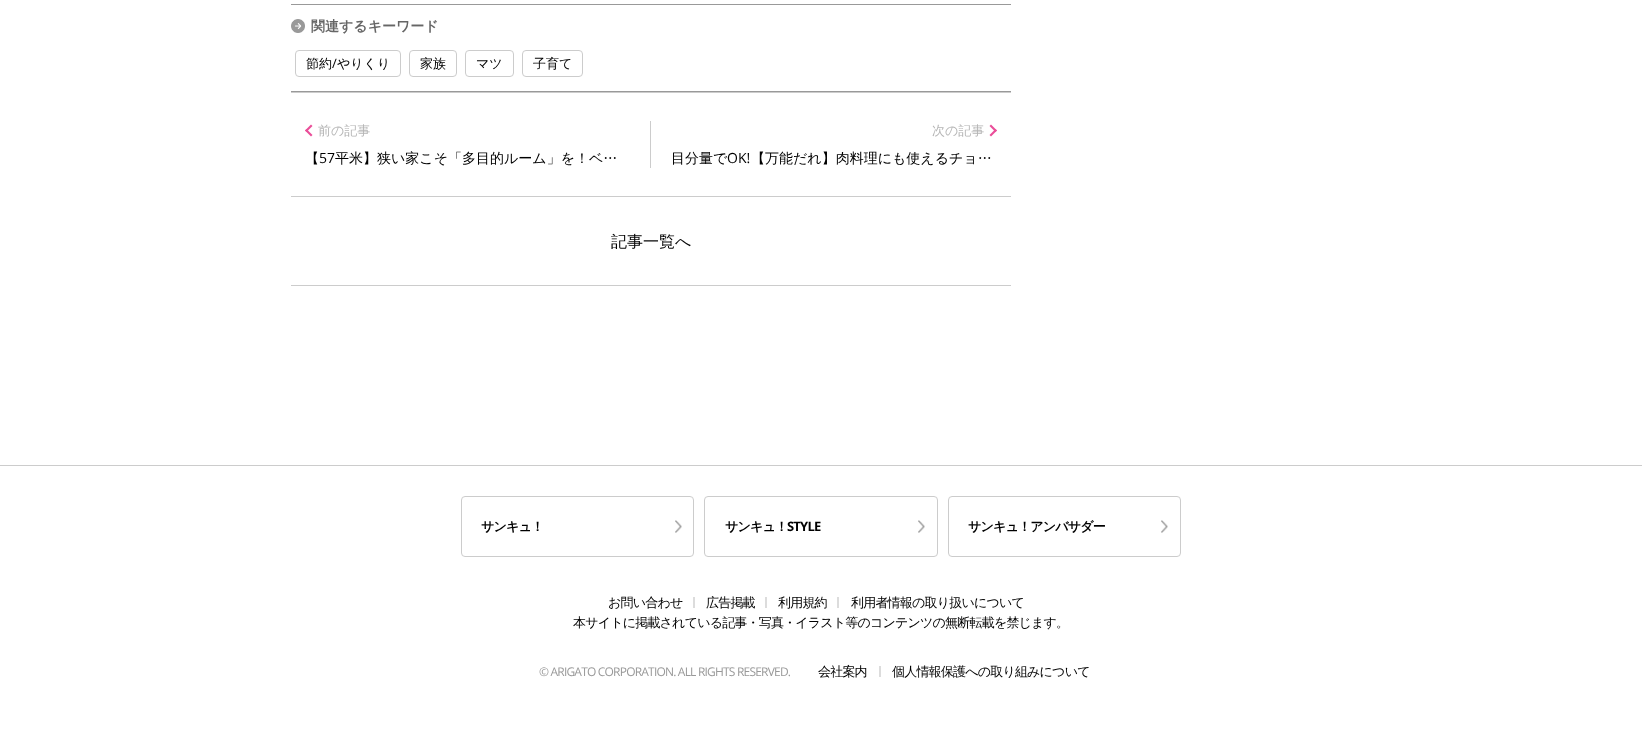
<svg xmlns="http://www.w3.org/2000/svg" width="1642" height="735">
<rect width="100%" height="100%" fill="#fff"/>
<rect x="291" y="4" width="720" height="1" fill="#999"/>
<rect x="291" y="91" width="720" height="1" fill="#999"/>
<image x="291" y="19" width="14" height="14" href="media/1.png"/>
<text x="311" y="31" style="font-family:WenQuanYi Zen Hei;font-size:14px;font-weight:bold;fill:#666">関連するキーワード</text>
<rect x="295.5" y="50.5" width="105" height="26" rx="3.5" fill="none" stroke="#ccc"/>
<text x="306" y="68" style="font-family:WenQuanYi Zen Hei;font-size:13px;font-weight:500;fill:#000">節約</text>
<text x="332" y="68" style="font-family:Open Sans;font-size:13px;fill:#000">/</text>
<text x="337" y="68" style="font-family:WenQuanYi Zen Hei;font-size:13px;font-weight:500;fill:#000">やりくり</text>
<rect x="409.5" y="50.5" width="47" height="26" rx="3.5" fill="none" stroke="#ccc"/>
<text x="420" y="68" style="font-family:WenQuanYi Zen Hei;font-size:13px;font-weight:500;fill:#000">家族</text>
<rect x="465.5" y="50.5" width="48" height="26" rx="3.5" fill="none" stroke="#ccc"/>
<text x="476" y="68" style="font-family:WenQuanYi Zen Hei;font-size:13px;font-weight:500;fill:#000">マツ</text>
<rect x="522.5" y="50.5" width="60" height="26" rx="3.5" fill="none" stroke="#ccc"/>
<text x="533" y="68" style="font-family:WenQuanYi Zen Hei;font-size:13px;font-weight:500;fill:#000">子育て</text>
<rect x="291" y="92" width="720" height="1" fill="#ccc"/>
<rect x="291" y="196" width="720" height="1" fill="#ccc"/>
<rect x="650" y="121" width="1" height="47" fill="#ccc"/>
<path d="M311 136.5l-6-6l1.5-1.5l6 6z" fill="#ea4e99"/>
<path d="M306.5 132l-1.5-1.5l6-6l1.5 1.5z" fill="#ea4e99"/>
<text x="318" y="135" style="font-family:WenQuanYi Zen Hei;font-size:13px;font-weight:500;fill:#b5b5b5">前の記事</text>
<text x="305" y="163" style="font-family:WenQuanYi Zen Hei;font-size:14px;font-weight:500;fill:#000">【</text>
<text x="319" y="163" style="font-family:Open Sans;font-size:14px;fill:#000">57</text>
<text x="335" y="163" style="font-family:WenQuanYi Zen Hei;font-size:14px;font-weight:500;fill:#000">平米】狭い家こそ「多目的ルーム」を！ベ…</text>
<text x="932" y="135" style="font-family:WenQuanYi Zen Hei;font-size:13px;font-weight:500;fill:#b5b5b5">次の記事</text>
<path d="M991 124.5l6 6l-1.5 1.5l-6-6z" fill="#ea4e99"/>
<path d="M995.5 129l1.5 1.5l-6 6l-1.5-1.5z" fill="#ea4e99"/>
<text x="671" y="163" style="font-family:WenQuanYi Zen Hei;font-size:14px;font-weight:500;fill:#000">目分量で</text>
<text x="727" y="163" style="font-family:Open Sans;font-size:14px;fill:#000">OK!</text>
<text x="751" y="163" style="font-family:WenQuanYi Zen Hei;font-size:14px;font-weight:500;fill:#000">【万能だれ】肉料理にも使えるチョ…</text>
<rect x="291" y="285" width="720" height="1" fill="#ccc"/>
<text x="611" y="247" style="font-family:WenQuanYi Zen Hei;font-size:16px;font-weight:500;fill:#000">記事一覧へ</text>
<rect y="465" width="1642" height="1" fill="#ccc"/>
<image x="675" y="520" width="7" height="13" href="media/2.png"/>
<rect x="461.5" y="496.5" width="232" height="60" rx="3.5" fill="none" stroke="#ccc"/>
<text x="481" y="531" style="font-family:WenQuanYi Zen Hei;font-size:13px;font-weight:bold;letter-spacing:-0.8px;fill:#000">サンキュ！</text>
<image x="918" y="520" width="7" height="13" href="media/2.png"/>
<rect x="704.5" y="496.5" width="233" height="60" rx="3.5" fill="none" stroke="#ccc"/>
<text x="725" y="531" style="font-family:WenQuanYi Zen Hei;font-size:13px;font-weight:bold;letter-spacing:-0.8px;fill:#000">サンキュ！</text>
<text x="787" y="531" style="font-family:Open Sans;font-size:13px;font-weight:bold;letter-spacing:-0.8px;fill:#000">STYLE</text>
<image x="1161" y="520" width="7" height="13" href="media/2.png"/>
<rect x="948.5" y="496.5" width="232" height="60" rx="3.5" fill="none" stroke="#ccc"/>
<text x="968" y="531" style="font-family:WenQuanYi Zen Hei;font-size:13px;font-weight:bold;letter-spacing:-0.8px;fill:#000">サンキュ！アンバサダー</text>
<text x="608" y="607" style="font-family:WenQuanYi Zen Hei;font-size:13px;font-weight:500;letter-spacing:-0.8px;fill:#000">お問い合わせ</text>
<rect x="693" y="597" width="2" height="11" fill="#dcdcdc"/>
<text x="706" y="607" style="font-family:WenQuanYi Zen Hei;font-size:13px;font-weight:500;letter-spacing:-0.8px;fill:#000">広告掲載</text>
<rect x="765" y="597" width="2" height="11" fill="#dcdcdc"/>
<text x="778" y="607" style="font-family:WenQuanYi Zen Hei;font-size:13px;font-weight:500;letter-spacing:-0.8px;fill:#000">利用規約</text>
<rect x="837" y="597" width="2" height="11" fill="#dcdcdc"/>
<text x="851" y="607" style="font-family:WenQuanYi Zen Hei;font-size:13px;font-weight:500;letter-spacing:-0.8px;fill:#000">利用者情報の取り扱いについて</text>
<text x="573" y="627" style="font-family:WenQuanYi Zen Hei;font-size:13px;font-weight:500;letter-spacing:-0.8px;fill:#000">本サイトに掲載されている記事・写真・イラスト等のコンテンツの無断転載を禁じます。</text>
<text x="539" y="676" style="font-family:Open Sans;font-size:12px;letter-spacing:-0.8px;fill:#999">© ARIGATO CORPORATION. ALL RIGHTS RESERVED.</text>
<text x="818" y="676" style="font-family:WenQuanYi Zen Hei;font-size:13px;font-weight:500;letter-spacing:-0.8px;fill:#000">会社案内</text>
<rect x="879" y="666" width="2" height="11" fill="#dcdcdc"/>
<text x="892" y="676" style="font-family:WenQuanYi Zen Hei;font-size:13px;font-weight:500;letter-spacing:-0.8px;fill:#000">個人情報保護への取り組みについて</text>
</svg>
